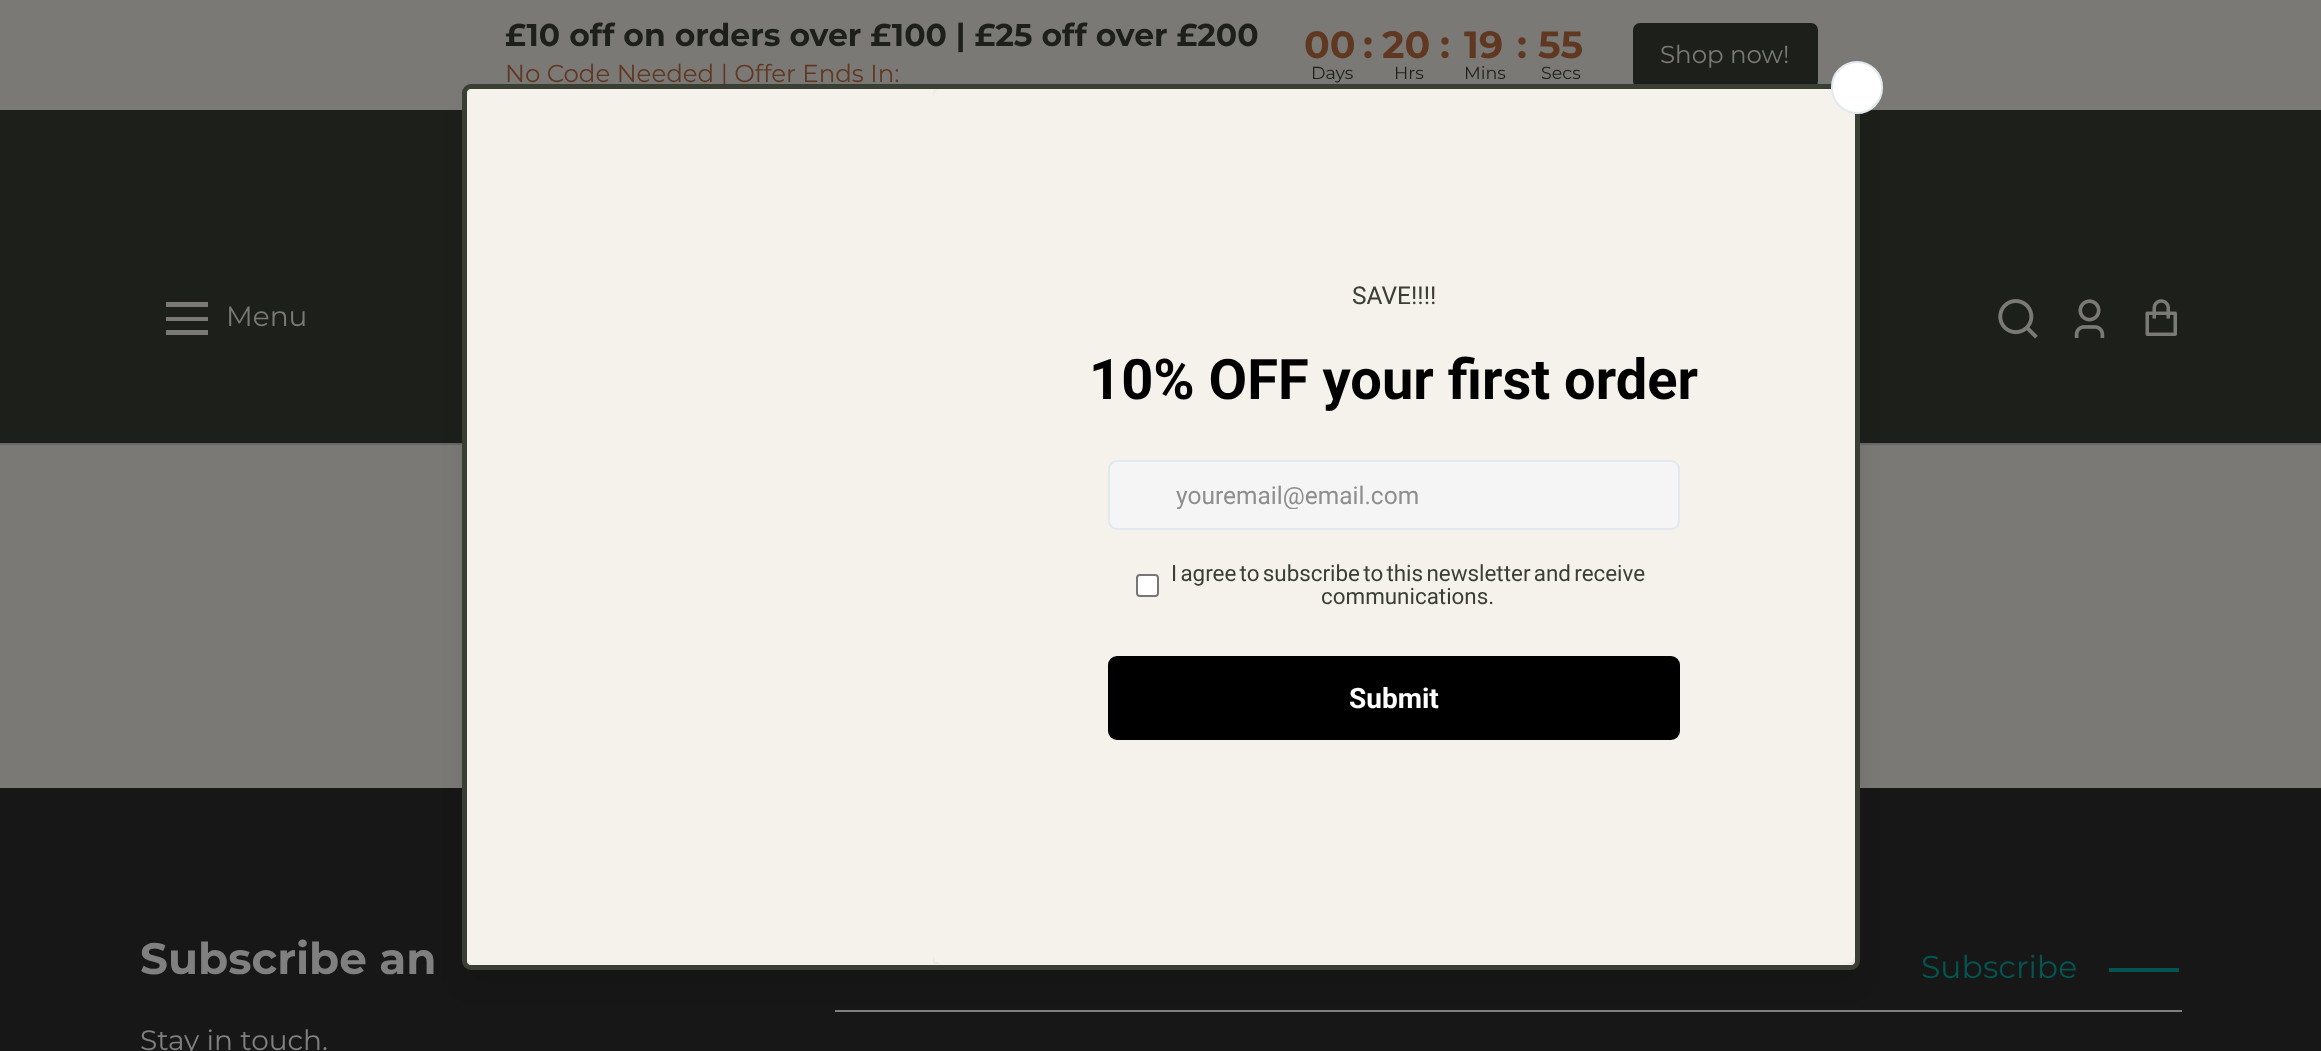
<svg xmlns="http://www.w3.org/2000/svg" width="2321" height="1051">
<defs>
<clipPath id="clip1"><rect x="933" y="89" width="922" height="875"/></clipPath>
<clipPath id="clip2"><rect x="1113" y="481" width="562" height="28"/></clipPath>
</defs>
<rect width="100%" height="100%" fill="#7b7976"/>
<text x="505" y="46" style="font-family:Montserrat;font-size:31.5px;font-weight:bold;fill:#1d201a">£10 off on orders over £100 | £25 off over £200</text>
<text x="505" y="82" style="font-family:Montserrat;font-size:24.5px;fill:#603822">No Code Needed | Offer Ends In:</text>
<text x="1304" y="58" style="font-family:Montserrat;font-size:38px;font-weight:bold;fill:#603822">00</text>
<text x="1363" y="58" style="font-family:Montserrat;font-size:38px;font-weight:bold;fill:#603822">:</text>
<text x="1382" y="58" style="font-family:Montserrat;font-size:38px;font-weight:bold;fill:#603822">20</text>
<text x="1440" y="58" style="font-family:Montserrat;font-size:38px;font-weight:bold;fill:#603822">:</text>
<text x="1464" y="58" style="font-family:Montserrat;font-size:38px;font-weight:bold;fill:#603822">19</text>
<text x="1517" y="58" style="font-family:Montserrat;font-size:38px;font-weight:bold;fill:#603822">:</text>
<text x="1538" y="58" style="font-family:Montserrat;font-size:38px;font-weight:bold;fill:#603822">55</text>
<text x="1311" y="79" style="font-family:Montserrat;font-size:17.5px;fill:#1d201a">Days</text>
<text x="1394" y="79" style="font-family:Montserrat;font-size:17.5px;fill:#1d201a">Hrs</text>
<text x="1464" y="79" style="font-family:Montserrat;font-size:17.5px;fill:#1d201a">Mins</text>
<text x="1541" y="79" style="font-family:Montserrat;font-size:17.5px;fill:#1d201a">Secs</text>
<rect x="1633" y="23" width="185" height="65" rx="7" fill="#1d201a"/>
<text x="1660" y="63" style="font-family:Montserrat;font-size:24.5px;fill:#7b7976">Shop now!</text>
<rect y="110" width="2321" height="333" fill="#1d201a"/>
<rect y="443" width="2321" height="2" fill="#676767"/>
<rect x="166" y="330" width="42" height="5" fill="#7b7976"/>
<rect x="166" y="317" width="42" height="4" fill="#7b7976"/>
<rect x="166" y="302" width="42" height="5" fill="#7b7976"/>
<text x="226" y="326" style="font-family:Montserrat;font-size:28px;fill:#7b7976">Menu</text>
<image x="1998" y="299" width="40" height="40" href="media/1.png"/>
<image x="2074" y="299" width="31" height="39" href="media/2.png"/>
<image x="2145" y="299" width="32" height="37" href="media/3.png"/>
<rect y="788" width="2321" height="263" fill="#171717"/>
<rect x="835" y="1010" width="1347" height="2" fill="#808080"/>
<rect x="467" y="107" width="1388" height="875" rx="4" fill="#0000001a" filter="blur(13px)"/>
<rect x="464.5" y="86.5" width="1393" height="881" rx="6.5" fill="#f5f2ec" stroke="#3a3f34" stroke-width="5"/>
<g clip-path="url(#clip1)">
<rect x="936" y="100" width="916" height="868" rx="5" fill="#0000000d" filter="blur(5px)"/>
<rect x="938" y="95" width="912" height="864" rx="4" fill="#0000001f" filter="blur(17.5px)"/>
</g>
<rect x="933" y="89" width="922" height="875" rx="9" fill="#f5f2ec"/>
<rect x="1832" y="62" width="50" height="51" rx="25" fill="#fff" stroke="#e2e8f0" stroke-width="2"/>
<text x="1352" y="304" style="font-family:Roboto;font-size:24.5px;fill:#3a3f34">SAVE!!!!</text>
<text x="1089" y="399" style="font-family:Roboto;font-size:56px;font-weight:bold;fill:#000">10% OFF your first order</text>
<rect x="1109" y="461" width="570" height="68" rx="8" fill="#f5f5f5" stroke="#e2e8f0" stroke-width="2"/>
<g clip-path="url(#clip2)">
<text x="1176" y="504" style="font-family:Roboto;font-size:24.5px;fill:#8e8e8e">youremail@email.com</text>
</g>
<rect x="1137" y="575" width="21" height="21" rx="3" fill="#fff" stroke="#767676" stroke-width="2"/>
<text x="1171" y="581" word-spacing="-2.25" style="font-family:Roboto;font-size:22.4px;fill:#3a3f34">I agree to subscribe to this newsletter and receive</text>
<text x="1321" y="604" style="font-family:Roboto;font-size:22.4px;fill:#3a3f34">communications.</text>
<rect x="1108" y="656" width="572" height="84" rx="9" fill="#000"/>
<text x="1349" y="708" style="font-family:Roboto;font-size:28px;font-weight:bold;fill:#fff">Submit</text>
<text x="140" y="974" style="font-family:Montserrat;font-size:43.75px;font-weight:bold;fill:#808080">Subscribe an</text>
<text x="140" y="1050" style="font-family:Montserrat;font-size:28px;fill:#808080">Stay in touch.</text>
<text x="1921" y="978" style="font-family:Montserrat;font-size:31.5px;fill:#035551">Subscribe</text>
<rect x="2109" y="968" width="70" height="4" fill="#035551"/>
</svg>
